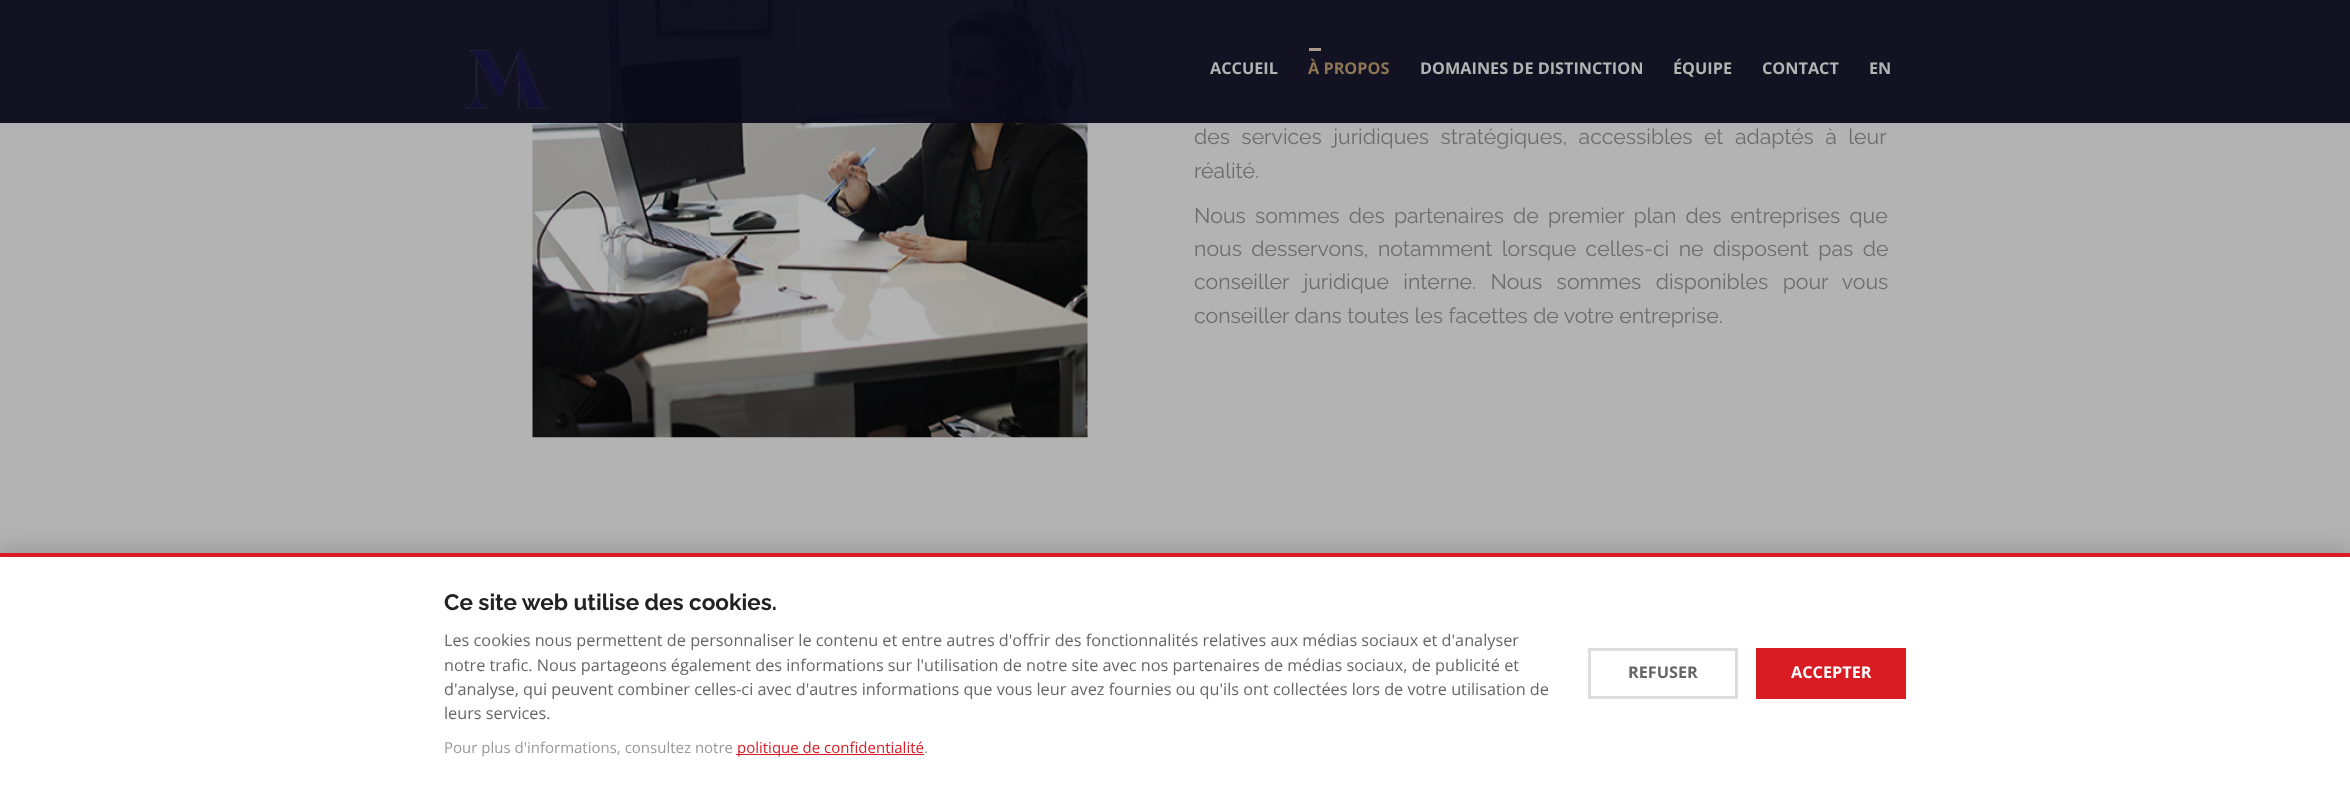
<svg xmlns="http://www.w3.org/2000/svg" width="2350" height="789">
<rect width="100%" height="100%" fill="#b3b3b3"/>
<image x="532" y="0" width="556" height="438" href="media/2.png"/>
<rect width="2350" height="123" fill="#09091bf2"/>
<image x="465" y="50" width="84" height="59" href="media/1.png"/>
<text x="1210" y="74" style="font-family:Open Sans;font-size:16.25px;font-weight:bold;fill:#b3b3b3">ACCUEIL</text>
<rect x="1309" y="48" width="12" height="3" fill="#aa9b8b"/>
<text x="1308" y="74" style="font-family:Open Sans;font-size:16.25px;font-weight:bold;fill:#8c7653">À PROPOS</text>
<text x="1420" y="74" style="font-family:Open Sans;font-size:16.25px;font-weight:bold;fill:#b3b3b3">DOMAINES DE DISTINCTION</text>
<text x="1673" y="74" style="font-family:Open Sans;font-size:16.25px;font-weight:bold;fill:#b3b3b3">ÉQUIPE</text>
<text x="1762" y="74" style="font-family:Open Sans;font-size:16.25px;font-weight:bold;fill:#b3b3b3">CONTACT</text>
<text x="1869" y="74" style="font-family:Open Sans;font-size:16.25px;font-weight:bold;fill:#b3b3b3">EN</text>
<text x="1194" y="144" word-spacing="6" style="font-family:Raleway;font-size:21.25px;fill:#6d6d6d">des services juridiques stratégiques, accessibles et adaptés à leur</text>
<text x="1194" y="178" style="font-family:Raleway;font-size:21.25px;fill:#6d6d6d">réalité.</text>
<text x="1194" y="223" word-spacing="3.75" style="font-family:Raleway;font-size:21.25px;fill:#6d6d6d">Nous sommes des partenaires de premier plan des entreprises que</text>
<text x="1194" y="256" word-spacing="4" style="font-family:Raleway;font-size:21.25px;fill:#6d6d6d">nous desservons, notamment lorsque celles-ci ne disposent pas de</text>
<text x="1194" y="289" word-spacing="9" style="font-family:Raleway;font-size:21.25px;fill:#6d6d6d">conseiller juridique interne. Nous sommes disponibles pour vous</text>
<text x="1194" y="323" style="font-family:Raleway;font-size:21.25px;fill:#6d6d6d">conseiller dans toutes les facettes de votre entreprise.</text>
<rect y="548" width="2350" height="237" fill="#00000026" filter="blur(12.5px)"/>
<rect y="557" width="2350" height="232" fill="#fff"/>
<rect y="553" width="2350" height="4" fill="#d91b23"/>
<text x="444" y="610" style="font-family:Raleway;font-size:22.5px;font-weight:bold;fill:#222">Ce site web utilise des cookies.</text>
<text x="444" y="646" style="font-family:Open Sans;font-size:16.25px;fill:#666">Les cookies nous permettent de personnaliser le contenu et entre autres d'offrir des fonctionnalités relatives aux médias sociaux et d'analyser</text>
<text x="444" y="671" style="font-family:Open Sans;font-size:16.25px;fill:#666">notre trafic. Nous partageons également des informations sur l'utilisation de notre site avec nos partenaires de médias sociaux, de publicité et</text>
<text x="444" y="695" style="font-family:Open Sans;font-size:16.25px;fill:#666">d'analyse, qui peuvent combiner celles-ci avec d'autres informations que vous leur avez fournies ou qu'ils ont collectées lors de votre utilisation de</text>
<text x="444" y="719" style="font-family:Open Sans;font-size:16.25px;fill:#666">leurs services.</text>
<text x="444" y="753" style="font-family:Open Sans;font-size:15px;fill:#999">Pour plus d'informations, consultez notre</text>
<rect x="736" y="754" width="188" height="1" fill="#d91b23"/>
<text x="737" y="753" style="font-family:Open Sans;font-size:15px;fill:#d91b23">politique de confidentialité</text>
<text x="924" y="753" style="font-family:Open Sans;font-size:15px;fill:#999">.</text>
<rect x="1589.5" y="649.5" width="147" height="48" fill="none" stroke="#ddd" stroke-width="3"/>
<text x="1628" y="678" style="font-family:Open Sans;font-size:16.25px;font-weight:bold;fill:#666">REFUSER</text>
<rect x="1756" y="648" width="150" height="51" fill="#d91b23"/>
<text x="1791" y="678" style="font-family:Open Sans;font-size:16.25px;font-weight:bold;fill:#fff">ACCEPTER</text>
</svg>
